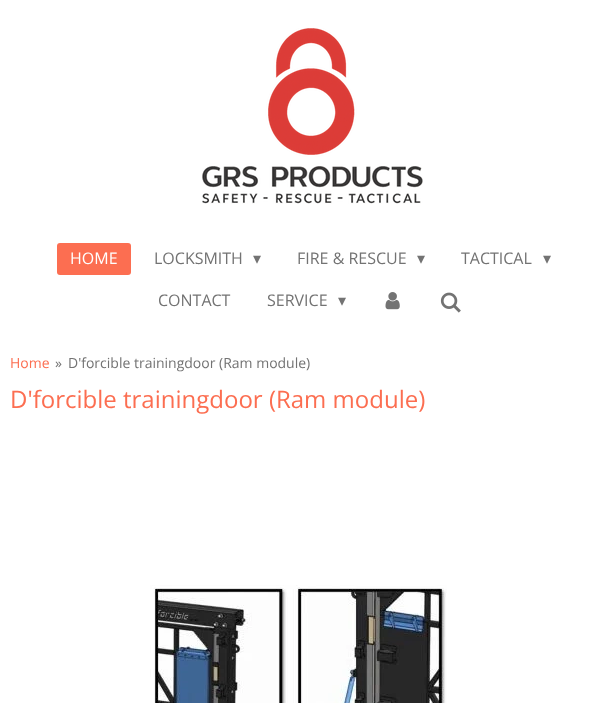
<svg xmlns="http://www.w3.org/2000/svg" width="601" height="703">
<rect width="100%" height="100%" fill="#fff"/>
<image x="202" y="28" width="221" height="176" href="media/1.png"/>
<rect x="57" y="243" width="74" height="32" rx="3" fill="#fc6e51"/>
<text x="70" y="264" style="font-family:Open Sans;font-size:16px;fill:#fff">HOME</text>
<text x="154" y="264" style="font-family:Open Sans;font-size:16px;fill:#737373">LOCKSMITH</text>
<text x="253" y="264" style="font-family:DejaVu Sans;font-size:16px;fill:#737373">▾</text>
<text x="297" y="264" style="font-family:Open Sans;font-size:16px;fill:#737373">FIRE &amp; RESCUE</text>
<text x="417" y="264" style="font-family:DejaVu Sans;font-size:16px;fill:#737373">▾</text>
<text x="461" y="264" style="font-family:Open Sans;font-size:16px;fill:#737373">TACTICAL</text>
<text x="543" y="264" style="font-family:DejaVu Sans;font-size:16px;fill:#737373">▾</text>
<text x="158" y="306" style="font-family:Open Sans;font-size:16px;fill:#737373">CONTACT</text>
<text x="267" y="306" style="font-family:Open Sans;font-size:16px;fill:#737373">SERVICE</text>
<text x="338" y="306" style="font-family:DejaVu Sans;font-size:16px;fill:#737373">▾</text>
<image x="385" y="292" width="15" height="18" href="media/2.png"/>
<image x="440" y="292" width="21" height="21" href="media/3.png"/>
<text x="10" y="368" style="font-family:Open Sans;font-size:14px;fill:#fc6e51">Home</text>
<text x="55" y="368" style="font-family:Open Sans;font-size:14px;fill:#737373">»</text>
<text x="68" y="368" style="font-family:Open Sans;font-size:14px;fill:#737373">D'forcible trainingdoor (Ram module)</text>
<text x="10" y="408" style="font-family:Open Sans;font-size:24px;fill:#fc6e51">D'forcible trainingdoor (Ram module)</text>
<image x="150" y="585" width="297" height="118" href="media/4.png"/>
</svg>
